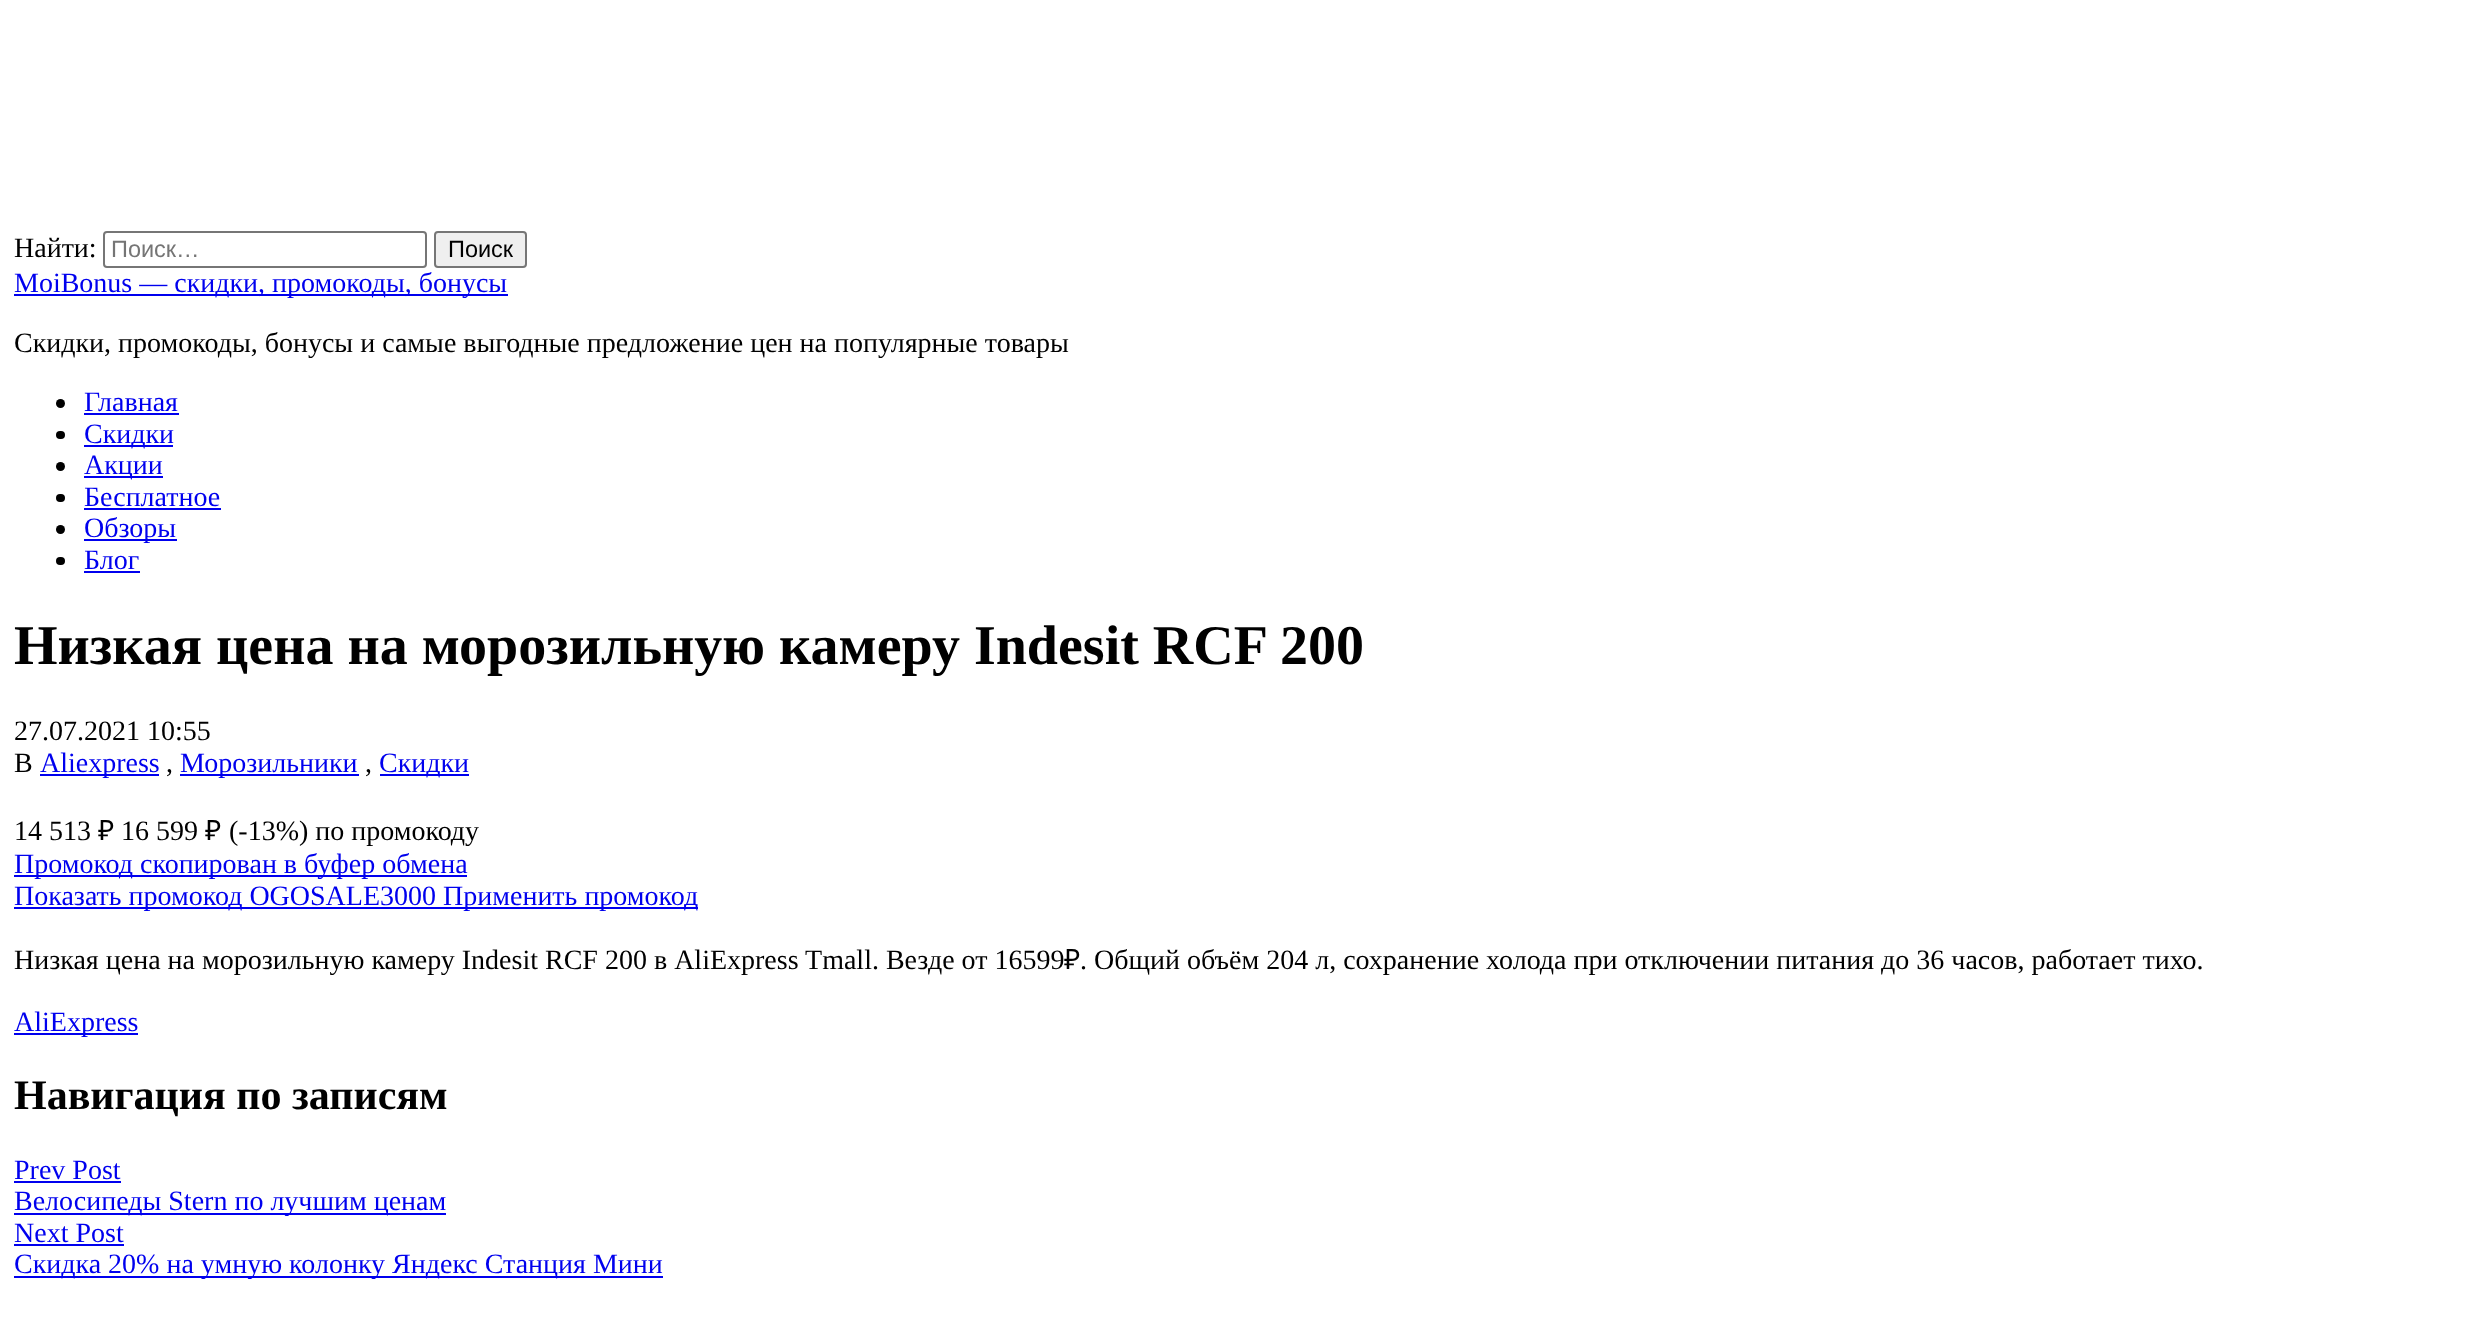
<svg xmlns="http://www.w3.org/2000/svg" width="2480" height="1334">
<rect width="100%" height="100%" fill="#fff"/>
<text x="14" y="257" style="font-family:Liberation Serif;font-size:28px;fill:#000">Найти:</text>
<rect x="104" y="232" width="322" height="35" rx="3" fill="none" stroke="#767676" stroke-width="2"/>
<text x="111" y="257" style="font-family:Liberation Sans;font-size:23.5px;fill:#757575">Поиск…</text>
<rect x="435" y="232" width="91" height="35" rx="3" fill="#efefef" stroke="#767676" stroke-width="2"/>
<text x="448" y="257" style="font-family:Liberation Sans;font-size:23.5px;fill:#000">Поиск</text>
<rect x="14" y="294" width="494" height="2" fill="#00e"/>
<text x="14" y="292" style="font-family:Liberation Serif;font-size:28px;fill:#00e">MoiBonus — скидки, промокоды, бонусы</text>
<text x="14" y="352" style="font-family:Liberation Serif;font-size:28px;fill:#000">Скидки, промокоды, бонусы и самые выгодные предложение цен на популярные товары</text>
<circle cx="60.5" cy="403.5" r="4.5" fill="#000"/>
<text x="84" y="411" style="font-family:Liberation Serif;font-size:28px;fill:#00e">Главная</text>
<rect x="84" y="413" width="95" height="2" fill="#00e"/>
<rect x="56" y="431" width="9" height="8" rx="4" fill="#000"/>
<rect x="84" y="445" width="89" height="2" fill="#00e"/>
<text x="84" y="443" style="font-family:Liberation Serif;font-size:28px;fill:#00e">Скидки</text>
<circle cx="60.5" cy="466.5" r="4.5" fill="#000"/>
<rect x="84" y="476" width="79" height="2" fill="#00e"/>
<text x="84" y="474" style="font-family:Liberation Serif;font-size:28px;fill:#00e">Акции</text>
<rect x="56" y="494" width="9" height="8" rx="4" fill="#000"/>
<text x="84" y="506" style="font-family:Liberation Serif;font-size:28px;fill:#00e">Бесплатное</text>
<rect x="84" y="508" width="137" height="2" fill="#00e"/>
<circle cx="60.5" cy="529.5" r="4.5" fill="#000"/>
<rect x="84" y="539" width="93" height="2" fill="#00e"/>
<text x="84" y="537" style="font-family:Liberation Serif;font-size:28px;fill:#00e">Обзоры</text>
<rect x="56" y="557" width="9" height="8" rx="4" fill="#000"/>
<text x="84" y="569" style="font-family:Liberation Serif;font-size:28px;fill:#00e">Блог</text>
<rect x="84" y="571" width="56" height="2" fill="#00e"/>
<text x="14" y="664" style="font-family:Liberation Serif;font-size:56px;font-weight:bold;fill:#000">Низкая цена на морозильную камеру Indesit RCF 200</text>
<text x="14" y="740" style="font-family:Liberation Serif;font-size:28px;fill:#000">27.07.2021 10:55</text>
<text x="14" y="772" style="font-family:Liberation Serif;font-size:28px;fill:#000">В</text>
<rect x="40" y="774" width="119" height="2" fill="#00e"/>
<text x="40" y="772" style="font-family:Liberation Serif;font-size:28px;fill:#00e">Aliexpress</text>
<text x="166" y="772" style="font-family:Liberation Serif;font-size:28px;fill:#000">,</text>
<rect x="180" y="774" width="179" height="2" fill="#00e"/>
<text x="180" y="772" style="font-family:Liberation Serif;font-size:28px;fill:#00e">Морозильники</text>
<text x="365" y="772" style="font-family:Liberation Serif;font-size:28px;fill:#000">,</text>
<rect x="380" y="774" width="89" height="2" fill="#00e"/>
<text x="379" y="772" style="font-family:Liberation Serif;font-size:28px;fill:#00e">Скидки</text>
<text x="14" y="840" style="font-family:Liberation Serif;font-size:28px;fill:#000">14 513</text>
<text x="98" y="840" style="font-family:Noto Sans;font-size:28px;fill:#000">₽</text>
<text x="121" y="840" style="font-family:Liberation Serif;font-size:28px;fill:#000">16 599</text>
<text x="205" y="840" style="font-family:Noto Sans;font-size:28px;fill:#000">₽</text>
<text x="229" y="840" style="font-family:Liberation Serif;font-size:28px;fill:#000">(-13%) по промокоду</text>
<rect x="14" y="875" width="453" height="2" fill="#00e"/>
<text x="14" y="873" style="font-family:Liberation Serif;font-size:28px;fill:#00e">Промокод скопирован в буфер обмена</text>
<rect x="14" y="907" width="684" height="2" fill="#00e"/>
<text x="14" y="905" style="font-family:Liberation Serif;font-size:28px;fill:#00e">Показать промокод OGOSALE3000 Применить промокод</text>
<text x="14" y="969" style="font-family:Liberation Serif;font-size:28px;fill:#000">Низкая цена на морозильную камеру Indesit RCF 200 в AliExpress Tmall. Везде от 16599</text>
<text x="1064" y="969" style="font-family:Noto Sans;font-size:28px;fill:#000">₽</text>
<text x="1080" y="969" style="font-family:Liberation Serif;font-size:28px;fill:#000">. Общий объём 204 л, сохранение холода при отключении питания до 36 часов, работает тихо.</text>
<rect x="14" y="1033" width="124" height="2" fill="#00e"/>
<text x="14" y="1031" style="font-family:Liberation Serif;font-size:28px;fill:#00e">AliExpress</text>
<text x="14" y="1109" style="font-family:Liberation Serif;font-size:42px;font-weight:bold;fill:#000">Навигация по записям</text>
<text x="14" y="1179" style="font-family:Liberation Serif;font-size:28px;fill:#00e">Prev Post</text>
<rect x="14" y="1181" width="107" height="2" fill="#00e"/>
<rect x="14" y="1213" width="432" height="2" fill="#00e"/>
<text x="14" y="1210" style="font-family:Liberation Serif;font-size:28px;fill:#00e">Велосипеды Stern по лучшим ценам</text>
<text x="14" y="1242" style="font-family:Liberation Serif;font-size:28px;fill:#00e">Next Post</text>
<rect x="14" y="1244" width="110" height="2" fill="#00e"/>
<rect x="14" y="1276" width="649" height="2" fill="#00e"/>
<text x="14" y="1273" style="font-family:Liberation Serif;font-size:28px;fill:#00e">Скидка 20% на умную колонку Яндекс Станция Мини</text>
</svg>
